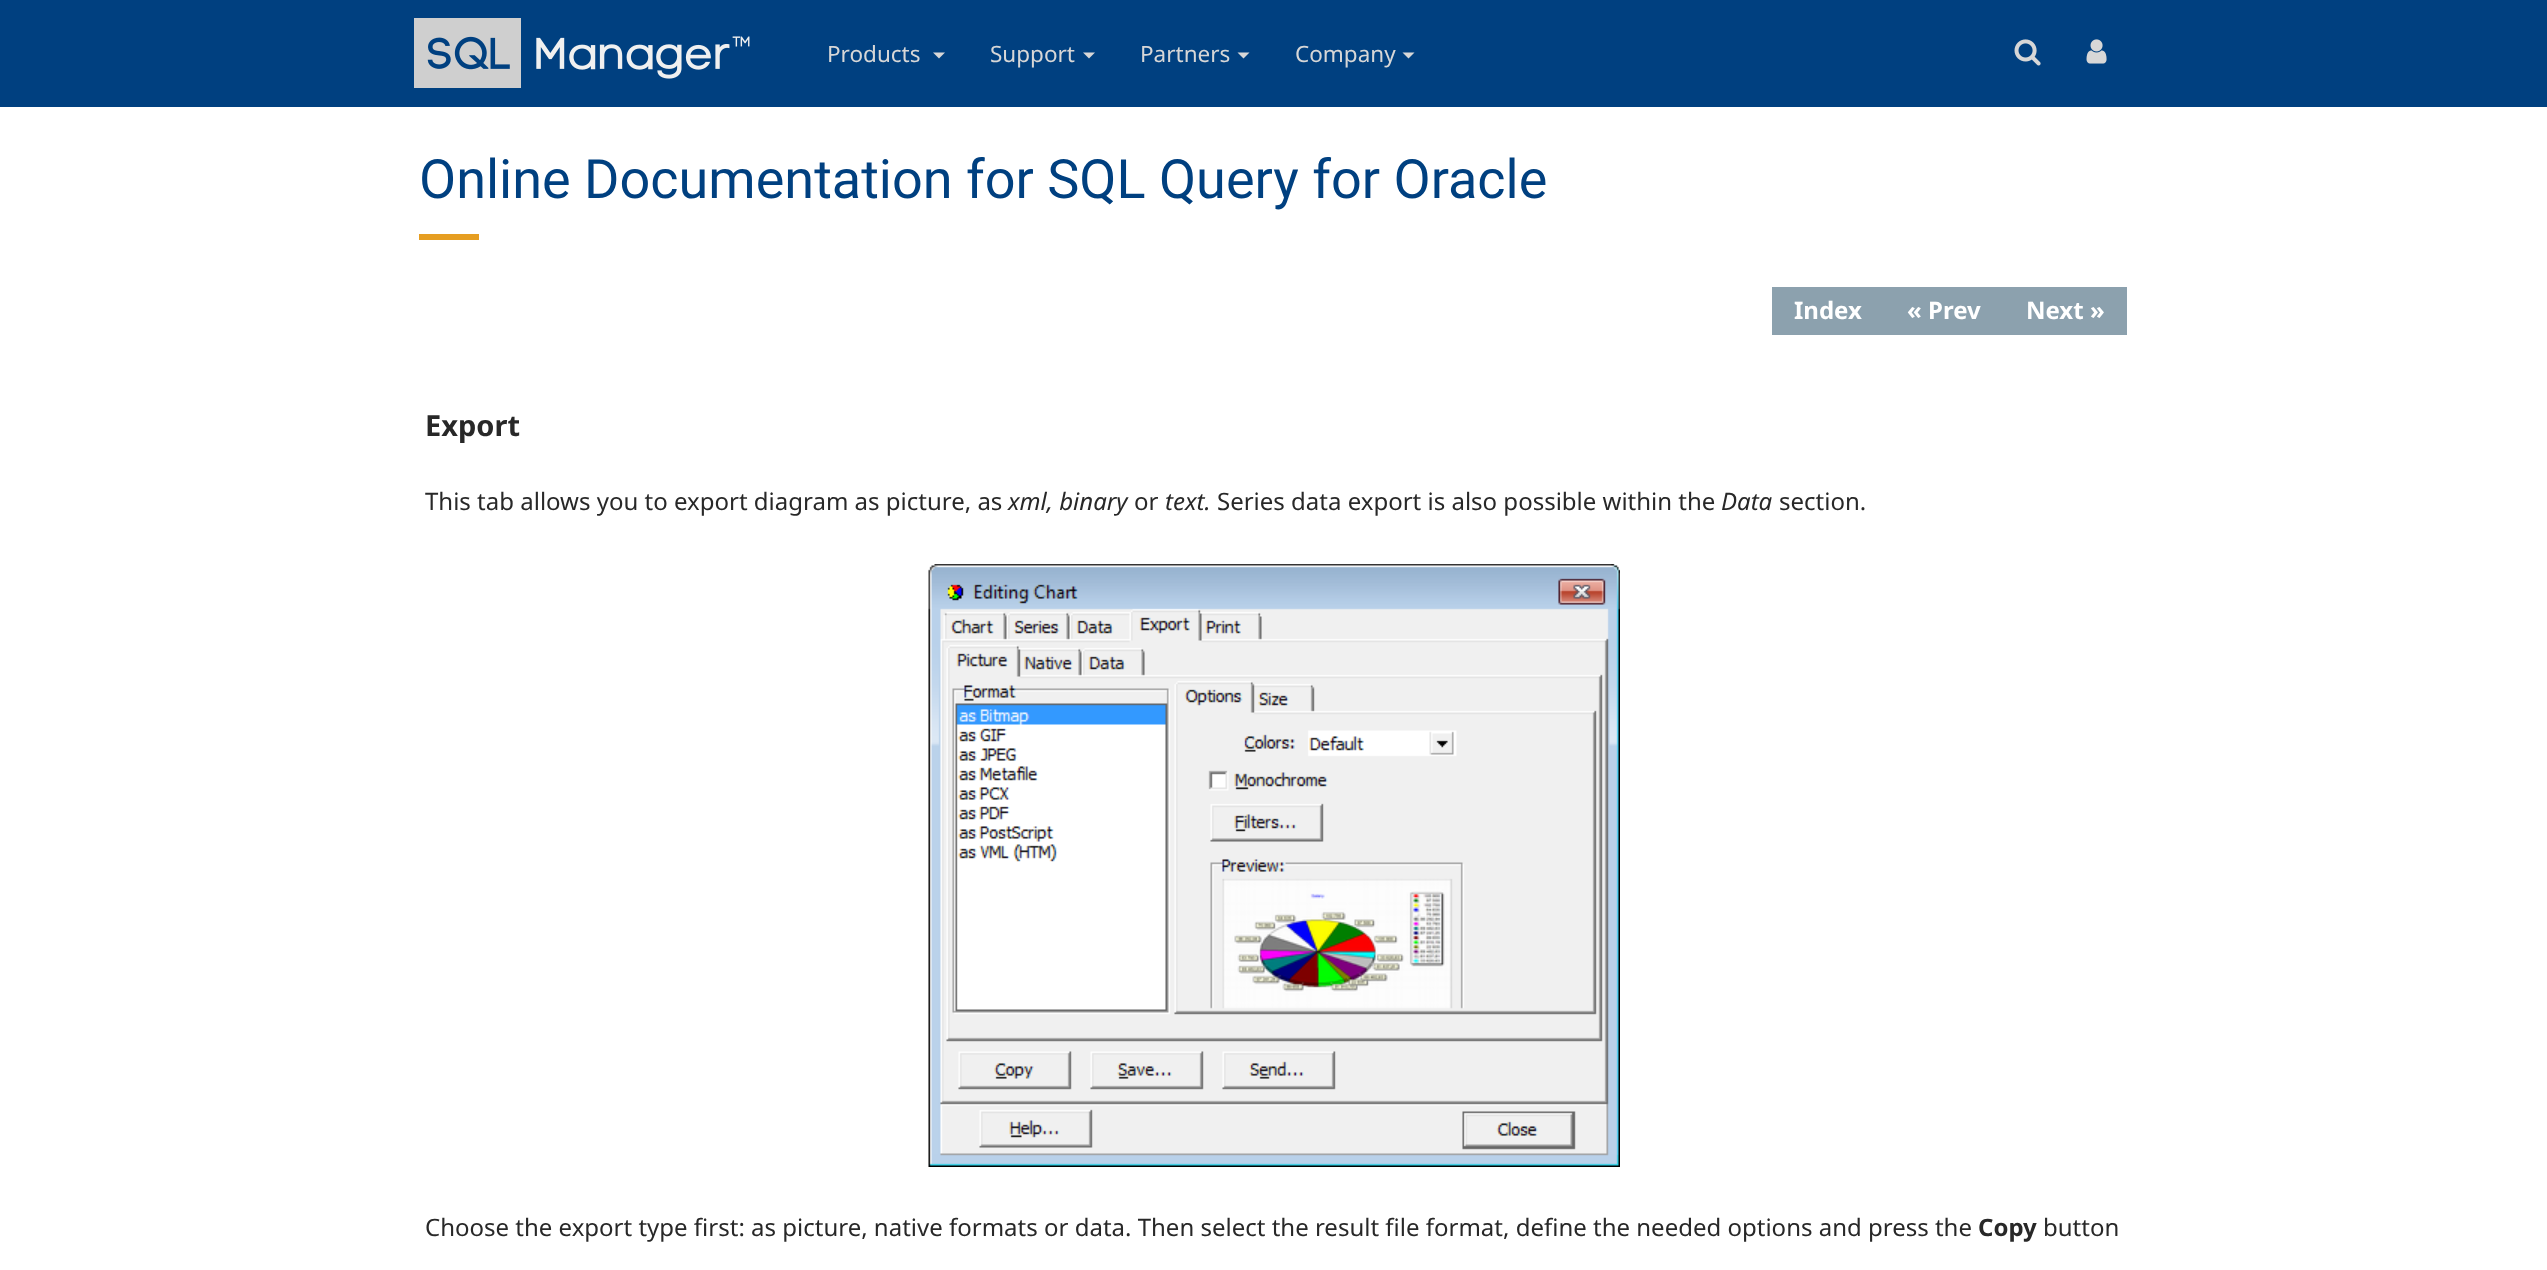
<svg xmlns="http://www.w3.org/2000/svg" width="2547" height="1270">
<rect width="100%" height="100%" fill="#fff"/>
<rect width="2547" height="107" fill="#004080"/>
<image x="414" y="18" width="336" height="70" href="media/1.png"/>
<text x="827" y="62" style="font-family:Noto Sans;font-size:22.5px;fill:#d7d7d7">Products</text>
<path d="M933 52.5h12l-6 6z" fill="#d7d7d7"/>
<text x="990" y="62" style="font-family:Noto Sans;font-size:22.5px;fill:#d7d7d7">Support</text>
<path d="M1083 52.5h12l-6 6z" fill="#d7d7d7"/>
<text x="1140" y="62" style="font-family:Noto Sans;font-size:22.5px;fill:#d7d7d7">Partners</text>
<path d="M1237.5 52.5h12l-6 6z" fill="#d7d7d7"/>
<text x="1295" y="62" style="font-family:Noto Sans;font-size:22.5px;fill:#d7d7d7">Company</text>
<path d="M1402.5 52.5h12l-6 6z" fill="#d7d7d7"/>
<image x="2014" y="39" width="27" height="27" href="media/2.png"/>
<image x="2086" y="39" width="21" height="25" href="media/3.png"/>
<text x="419" y="198" style="font-family:Roboto;font-size:54px;fill:#004080">Online Documentation for SQL Query for Oracle</text>
<rect x="419" y="234" width="60" height="6" fill="#e69e21"/>
<rect x="1772" y="287" width="355" height="48" fill="#8ca1ae"/>
<text x="1794" y="319" style="font-family:Noto Sans;font-size:24px;font-weight:bold;fill:#fff">Index</text>
<text x="1907" y="319" style="font-family:Noto Sans;font-size:24px;font-weight:bold;fill:#fff">« Prev</text>
<text x="2026" y="319" style="font-family:Noto Sans;font-size:24px;font-weight:bold;fill:#fff">Next »</text>
<text x="425" y="436" style="font-family:Noto Sans;font-size:29px;font-weight:bold;fill:#282828">Export</text>
<text x="425" y="510" style="font-family:Noto Sans;font-size:24px;fill:#282828">This tab allows you to export diagram as picture, as</text>
<text x="1008" y="510" style="font-family:Noto Sans;font-size:24px;font-style:italic;fill:#282828">xml, binary</text>
<text x="1134" y="510" style="font-family:Noto Sans;font-size:24px;fill:#282828">or</text>
<text x="1165" y="510" style="font-family:Noto Sans;font-size:24px;font-style:italic;fill:#282828">text.</text>
<text x="1217" y="510" style="font-family:Noto Sans;font-size:24px;fill:#282828">Series data export is also possible within the</text>
<text x="1721" y="510" style="font-family:Noto Sans;font-size:24px;font-style:italic;fill:#282828">Data</text>
<text x="1779" y="510" style="font-family:Noto Sans;font-size:24px;fill:#282828">section.</text>
<image x="928" y="564" width="692" height="603" href="media/4.png"/>
<text x="425" y="1236" style="font-family:Noto Sans;font-size:24px;fill:#282828">Choose the export type first: as picture, native formats or data. Then select the result file format, define the needed options and press the</text>
<text x="1978" y="1236" style="font-family:Noto Sans;font-size:24px;font-weight:bold;fill:#282828">Copy</text>
<text x="2043" y="1236" style="font-family:Noto Sans;font-size:24px;fill:#282828">button</text>
</svg>
